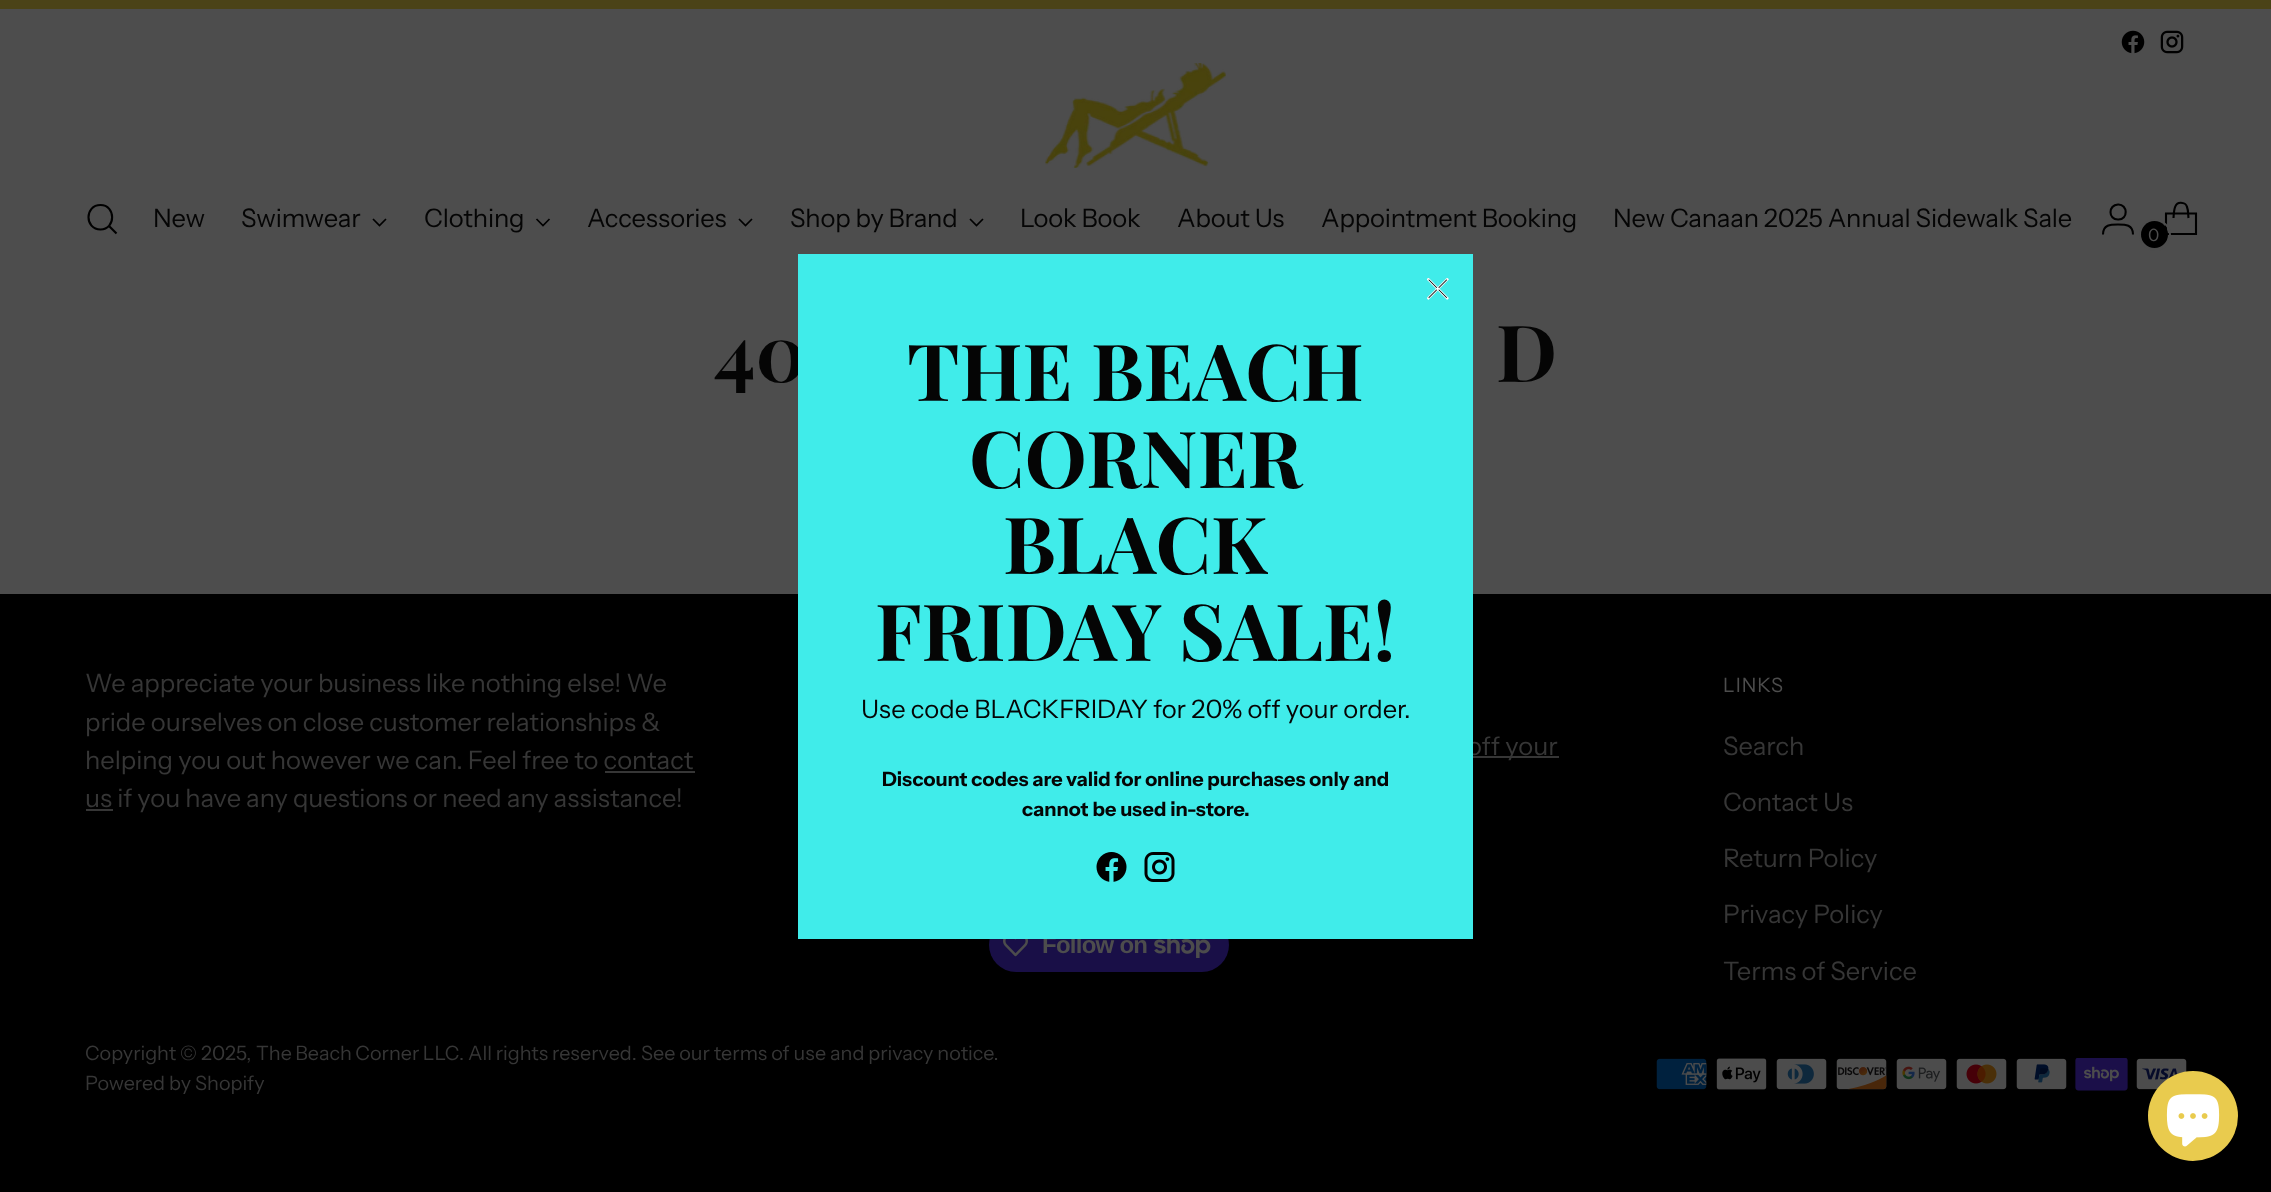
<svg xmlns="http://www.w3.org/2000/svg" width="2271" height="1192">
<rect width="100%" height="100%" fill="#4d4d4d"/>
<rect width="2271" height="9" fill="#4b4317"/>
<image x="2121" y="30" width="24" height="24" href="media/1.png"/>
<image x="2160" y="30" width="24" height="24" href="media/2.png"/>
<image x="1045" y="63" width="181" height="105" href="media/3.png"/>
<path d="M100.5 229.5c15.5 0 15.5-24.5 0-24.5c-16 0-16 24.5 0 24.5z" fill="none" stroke="#000" stroke-width="2.1" stroke-linecap="round"/>
<path d="M109 226l7.5 7.5" fill="none" stroke="#000" stroke-width="2.1"/>
<text x="153" y="227" style="font-family:Instrument Sans;font-size:25.5px;letter-spacing:-0.15px;fill:#050505">New</text>
<text x="241" y="227" style="font-family:Instrument Sans;font-size:25.5px;letter-spacing:-0.15px;fill:#050505">Swimwear</text>
<path d="M373 219l6.5 6.5l6.5-6.5" fill="none" stroke="#000" stroke-width="1.7"/>
<text x="424" y="227" style="font-family:Instrument Sans;font-size:25.5px;letter-spacing:-0.15px;fill:#050505">Clothing</text>
<path d="M536.5 219l6.5 6.5l6.5-6.5" fill="none" stroke="#000" stroke-width="1.7"/>
<text x="587" y="227" style="font-family:Instrument Sans;font-size:25.5px;letter-spacing:-0.15px;fill:#050505">Accessories</text>
<path d="M739 219l6.5 6.5l6.5-6.5" fill="none" stroke="#000" stroke-width="1.7"/>
<text x="790" y="227" style="font-family:Instrument Sans;font-size:25.5px;letter-spacing:-0.15px;fill:#050505">Shop by Brand</text>
<path d="M970 219l6.5 6.5l6.5-6.5" fill="none" stroke="#000" stroke-width="1.7"/>
<text x="1020" y="227" style="font-family:Instrument Sans;font-size:25.5px;letter-spacing:-0.15px;fill:#050505">Look Book</text>
<text x="1177" y="227" style="font-family:Instrument Sans;font-size:25.5px;letter-spacing:-0.15px;fill:#050505">About Us</text>
<text x="1321" y="227" style="font-family:Instrument Sans;font-size:25.5px;letter-spacing:-0.15px;fill:#050505">Appointment Booking</text>
<text x="1613" y="227" style="font-family:Instrument Sans;font-size:25.5px;letter-spacing:-0.15px;fill:#050505">New Canaan 2025 Annual Sidewalk Sale</text>
<path d="M2118 219.5c10.5 .5 10-15.5 0-15c-10 .5-10 15 0 15zm-15 15c0-10 7.5-10 15-10c7.5 0 15 0 15 10" fill="none" stroke="#000" stroke-width="2.1"/>
<path d="M2188.5 218c-.5-3.5 0-7.5-1.5-11c-.5-2-2.5-4-4.5-4c-9-2-8.5 9.5-9 15" fill="none" stroke="#000" stroke-width="2.1" stroke-linejoin="bevel"/>
<path d="M2196 234v-20.5h-30v20.5z" fill="none" stroke="#000" stroke-width="2.1"/>
<circle cx="2155" cy="235" r="15" fill="none" stroke="#4d4d4d" stroke-width="2"/>
<circle cx="2154.5" cy="234.5" r="13.5" fill="#000"/>
<text x="2148" y="241" style="font-family:Instrument Sans;font-size:17px;fill:#4d4d4d">0</text>
<text x="714" y="382" style="font-family:Playfair Display;font-size:78.75px;font-weight:bold;fill:#050505">40</text>
<text x="1496" y="382" style="font-family:Playfair Display;font-size:78.75px;font-weight:bold;fill:#050505">D</text>
<rect y="594" width="2271" height="598" fill="#000"/>
<rect x="1473" y="756" width="86" height="2" fill="#363636"/>
<text x="1467" y="755" style="font-family:Instrument Sans;font-size:25.5px;fill:#363636">off your</text>
<rect x="989" y="918" width="240" height="54" rx="27" fill="#190f47"/>
<text x="1042" y="953" style="font-family:Liberation Sans;font-size:24px;font-weight:bold;letter-spacing:-0.75px;fill:#4d4d4d">Follow on</text>
<rect x="798" y="254" width="675" height="685" fill="#40ecea"/>
<image x="1427" y="278" width="22" height="22" href="media/4.png"/>
<text x="907" y="401" style="font-family:Playfair Display;font-size:78.75px;font-weight:bold;fill:#050505">THE BEACH</text>
<text x="969" y="488" style="font-family:Playfair Display;font-size:78.75px;font-weight:bold;fill:#050505">CORNER</text>
<text x="1003" y="574" style="font-family:Playfair Display;font-size:78.75px;font-weight:bold;fill:#050505">BLACK</text>
<text x="875" y="661" style="font-family:Playfair Display;font-size:78.75px;font-weight:bold;fill:#050505">FRIDAY SALE!</text>
<text x="861" y="718" style="font-family:Instrument Sans;font-size:25.5px;fill:#050505">Use code BLACKFRIDAY for 20% off your order.</text>
<text x="882" y="786" style="font-family:Instrument Sans;font-size:19.8px;font-weight:bold;fill:#050505">Discount codes are valid for online purchases only and</text>
<text x="1022" y="816" style="font-family:Instrument Sans;font-size:19.8px;font-weight:bold;fill:#050505">cannot be used in-store.</text>
<image x="1096" y="852" width="31" height="30" href="media/5.png"/>
<image x="1144" y="852" width="31" height="30" href="media/6.png"/>
<text x="85" y="692" style="font-family:Instrument Sans;font-size:25.5px;fill:#363636">We appreciate your business like nothing else! We</text>
<text x="85" y="731" style="font-family:Instrument Sans;font-size:25.5px;fill:#363636">pride ourselves on close customer relationships &amp;</text>
<text x="85" y="769" style="font-family:Instrument Sans;font-size:25.5px;fill:#363636">helping you out however we can. Feel free to contact</text>
<rect x="86" y="809" width="27" height="2" fill="#363636"/>
<text x="85" y="807" style="font-family:Instrument Sans;font-size:25.5px;fill:#363636">us if you have any questions or need any assistance!</text>
<rect x="605" y="771" width="90" height="2" fill="#363636"/>
<image x="1003" y="939" width="25" height="18" href="media/7.png"/>
<image x="1154" y="939" width="57" height="19" href="media/8.png"/>
<text x="1723" y="692" style="font-family:Instrument Sans;font-size:19.8px;letter-spacing:1px;fill:#4d4d4d">LINKS</text>
<text x="1723" y="755" style="font-family:Instrument Sans;font-size:25.5px;fill:#363636">Search</text>
<text x="1723" y="811" style="font-family:Instrument Sans;font-size:25.5px;fill:#363636">Contact Us</text>
<text x="1723" y="867" style="font-family:Instrument Sans;font-size:25.5px;fill:#363636">Return Policy</text>
<text x="1723" y="923" style="font-family:Instrument Sans;font-size:25.5px;fill:#363636">Privacy Policy</text>
<text x="1723" y="980" style="font-family:Instrument Sans;font-size:25.5px;fill:#363636">Terms of Service</text>
<text x="85" y="1060" style="font-family:Instrument Sans;font-size:19.8px;fill:#363636">Copyright © 2025,</text>
<text x="256" y="1060" word-spacing="-0.5" style="font-family:Instrument Sans;font-size:19.8px;fill:#363636">The Beach Corner LLC</text>
<text x="459" y="1060" style="font-family:Instrument Sans;font-size:19.8px;fill:#363636">. All rights reserved.</text>
<text x="641" y="1060" style="font-family:Instrument Sans;font-size:19.8px;fill:#363636">See our terms of use and privacy notice.</text>
<text x="85" y="1090" style="font-family:Instrument Sans;font-size:19.8px;fill:#363636">Powered by Shopify</text>
<image x="1656" y="1058" width="51" height="32" href="media/9.png"/>
<image x="1716" y="1058" width="51" height="32" href="media/10.png"/>
<image x="1776" y="1058" width="51" height="32" href="media/11.png"/>
<image x="1836" y="1058" width="51" height="32" href="media/12.png"/>
<image x="1896" y="1058" width="51" height="32" href="media/13.png"/>
<image x="1956" y="1058" width="51" height="32" href="media/14.png"/>
<image x="2016" y="1058" width="51" height="32" href="media/15.png"/>
<image x="2075" y="1058" width="53" height="33" href="media/16.png"/>
<image x="2136" y="1058" width="51" height="32" href="media/17.png"/>
<circle cx="2193" cy="1116" r="45" fill="#e9cb4e"/>
<image x="2166" y="1094" width="54" height="53" href="media/18.png"/>
</svg>
